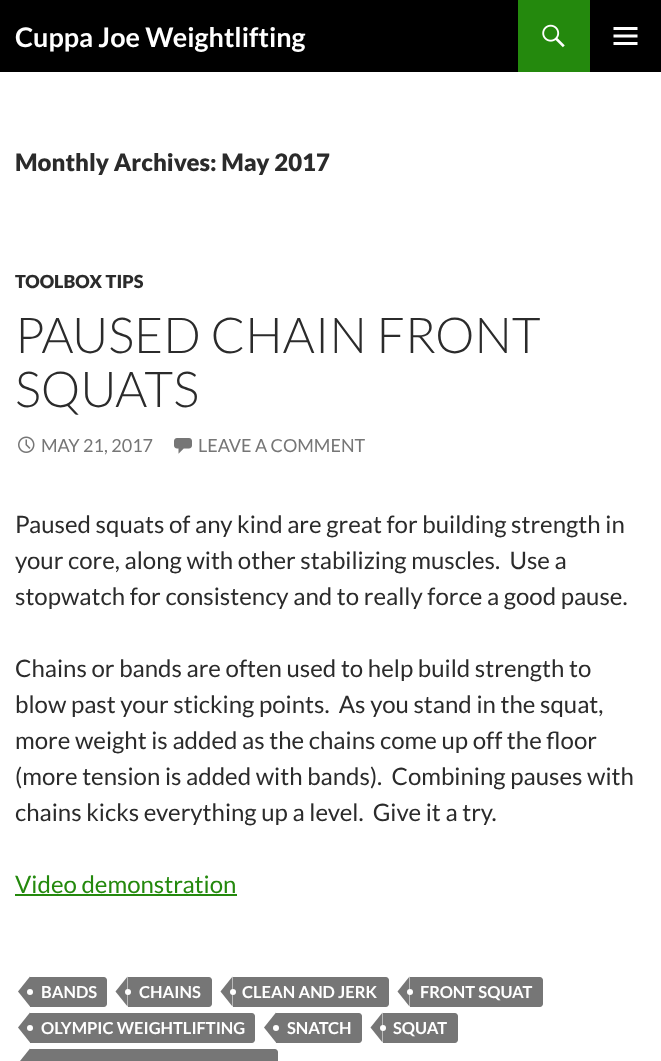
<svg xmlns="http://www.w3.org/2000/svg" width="661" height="1061">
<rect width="100%" height="100%" fill="#fff"/>
<rect width="661" height="72" fill="#000"/>
<text x="15" y="47" style="font-family:Lato;font-size:27px;font-weight:bold;fill:#fff">Cuppa Joe Weightlifting</text>
<rect x="518" width="72" height="72" fill="#24890d"/>
<image x="542" y="24" width="23" height="24" href="media/1.png"/>
<image x="613" y="27" width="25" height="18" href="media/2.png"/>
<text x="15" y="171" style="font-family:Lato;font-size:24px;font-weight:900;fill:#2b2b2b">Monthly Archives: May 2017</text>
<text x="15" y="288" style="font-family:Lato;font-size:18px;font-weight:900;fill:#2b2b2b">TOOLBOX TIPS</text>
<text x="15" y="353" style="font-family:Lato;font-size:49.5px;font-weight:300;fill:#2b2b2b">PAUSED CHAIN FRONT</text>
<text x="15" y="407" style="font-family:Lato;font-size:49.5px;font-weight:300;fill:#2b2b2b">SQUATS</text>
<image x="18" y="436" width="17" height="17" href="media/3.png"/>
<text x="41" y="452" style="font-family:Lato;font-size:18px;fill:#767676">MAY 21, 2017</text>
<image x="174" y="438" width="18" height="16" href="media/4.png"/>
<text x="198" y="452" style="font-family:Lato;font-size:18px;fill:#767676">LEAVE A COMMENT</text>
<text x="15" y="533" style="font-family:Lato;font-size:24px;fill:#2b2b2b">Paused squats of any kind are great for building strength in</text>
<text x="15" y="569" style="font-family:Lato;font-size:24px;fill:#2b2b2b" xml:space="preserve">your core, along with other stabilizing muscles.  Use a</text>
<text x="15" y="605" style="font-family:Lato;font-size:24px;fill:#2b2b2b">stopwatch for consistency and to really force a good pause.</text>
<text x="15" y="677" style="font-family:Lato;font-size:24px;fill:#2b2b2b">Chains or bands are often used to help build strength to</text>
<text x="15" y="713" style="font-family:Lato;font-size:24px;fill:#2b2b2b" xml:space="preserve">blow past your sticking points.  As you stand in the squat,</text>
<text x="15" y="749" style="font-family:Lato;font-size:24px;fill:#2b2b2b">more weight is added as the chains come up off the floor</text>
<text x="15" y="785" style="font-family:Lato;font-size:24px;fill:#2b2b2b" xml:space="preserve">(more tension is added with bands).  Combining pauses with</text>
<text x="15" y="821" style="font-family:Lato;font-size:24px;fill:#2b2b2b" xml:space="preserve">chains kicks everything up a level.  Give it a try.</text>
<text x="15" y="893" style="font-family:Lato;font-size:24px;fill:#24890d">Video demonstration</text>
<rect x="15" y="894" width="222" height="2" fill="#24890d"/>
<path d="M30 977h74c1.5 0 3 1.5 3 3v24c0 1.5-1.5 3-3 3h-74z" fill="#767676"/>
<path d="M30 976.5v30l-12-15z" fill="#767676"/>
<text x="41" y="998" style="font-family:Lato;font-size:16.5px;font-weight:bold;fill:#fff">BANDS</text>
<circle cx="30" cy="992" r="3" fill="#fff"/>
<path d="M128 977h81c1.5 0 3 1.5 3 3v24c0 1.5-1.5 3-3 3h-81z" fill="#767676"/>
<path d="M127.5 976.5v30l-12-15z" fill="#767676"/>
<text x="139" y="998" style="font-family:Lato;font-size:16.5px;font-weight:bold;fill:#fff">CHAINS</text>
<circle cx="128" cy="992" r="3" fill="#fff"/>
<path d="M233 977h153c1.5 0 3 1.5 3 3v24c0 1.5-1.5 3-3 3h-153z" fill="#767676"/>
<path d="M232.5 976.5v30l-12-15z" fill="#767676"/>
<text x="242" y="998" style="font-family:Lato;font-size:16.5px;font-weight:bold;fill:#fff">CLEAN AND JERK</text>
<circle cx="233" cy="992" r="3" fill="#fff"/>
<path d="M410 977h130c1.5 0 3 1.5 3 3v24c0 1.5-1.5 3-3 3h-130z" fill="#767676"/>
<path d="M409.5 976.5v30l-12-15z" fill="#767676"/>
<text x="420" y="998" style="font-family:Lato;font-size:16.5px;font-weight:bold;fill:#fff">FRONT SQUAT</text>
<circle cx="410" cy="992" r="3" fill="#fff"/>
<path d="M30 1013h222c1.5 0 3 1.5 3 3v24c0 1.5-1.5 3-3 3h-222z" fill="#767676"/>
<path d="M30 1012.5v30l-12-15z" fill="#767676"/>
<text x="41" y="1034" style="font-family:Lato;font-size:16.5px;font-weight:bold;fill:#fff">OLYMPIC WEIGHTLIFTING</text>
<circle cx="30" cy="1028" r="3" fill="#fff"/>
<path d="M276 1013h83c1.5 0 3 1.5 3 3v24c0 1.5-1.5 3-3 3h-83z" fill="#767676"/>
<path d="M276 1012.5v30l-12-15z" fill="#767676"/>
<text x="287" y="1034" style="font-family:Lato;font-size:16.5px;font-weight:bold;fill:#fff">SNATCH</text>
<circle cx="276" cy="1028" r="3" fill="#fff"/>
<path d="M383 1013h72c1.5 0 3 1.5 3 3v24c0 1.5-1.5 3-3 3h-72z" fill="#767676"/>
<path d="M382.5 1012.5v30l-12-15z" fill="#767676"/>
<text x="393" y="1034" style="font-family:Lato;font-size:16.5px;font-weight:bold;fill:#fff">SQUAT</text>
<circle cx="383" cy="1028" r="3" fill="#fff"/>
<path d="M30 1049h245c1.5 0 3 1.5 3 3v9c0 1.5-1.5 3-3 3h-245z" fill="#767676"/>
<path d="M30 1048.5v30l-12-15z" fill="#767676"/>
</svg>
